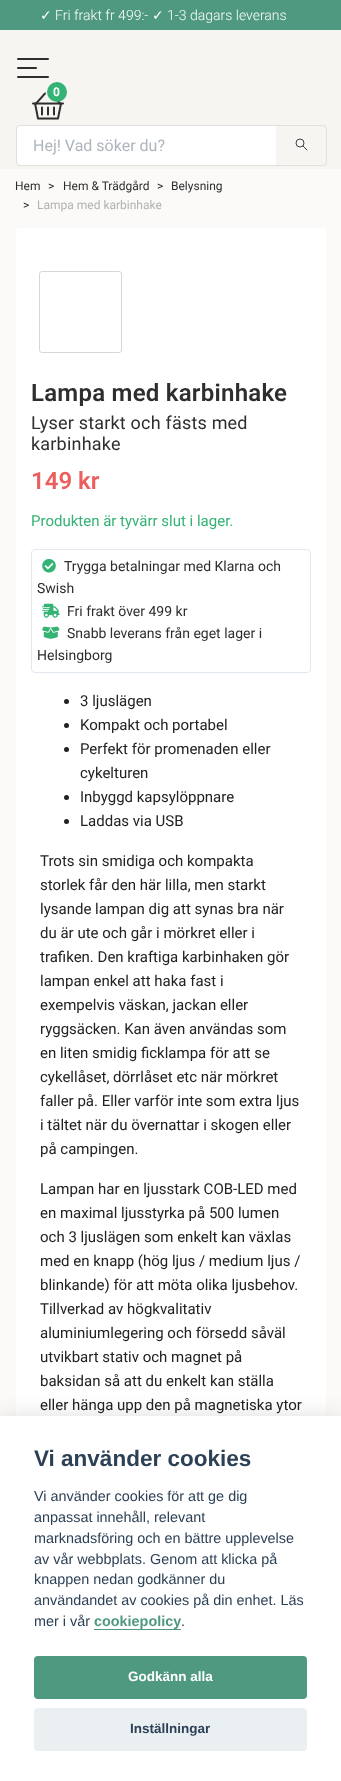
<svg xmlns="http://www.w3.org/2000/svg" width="341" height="1781">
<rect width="100%" height="100%" fill="#fbfaf9"/>
<rect width="341" height="30" fill="#4f9980"/>
<text x="40" y="20" style="font-family:DejaVu Sans;font-size:14px;fill:#fff">✓</text>
<text x="55" y="20" style="font-family:Roboto;font-size:14px;font-weight:300;fill:#fff">Fri frakt fr 499:-</text>
<text x="152" y="20" style="font-family:DejaVu Sans;font-size:14px;fill:#fff">✓</text>
<text x="167" y="20" style="font-family:Roboto;font-size:14px;font-weight:300;fill:#fff">1-3 dagars leverans</text>
<rect y="30" width="341" height="139" fill="#f7f5f1"/>
<path d="M18 59h30m-30 9h18m-18 9h30" fill="none" stroke="#2e2e2e" stroke-width="2" stroke-linecap="round" stroke-linejoin="round"/>
<image x="32" y="92" width="32" height="28" href="media/1.png"/>
<circle cx="57" cy="92" r="10" fill="#34b374"/>
<text x="53" y="96" style="font-family:Roboto;font-size:12px;font-weight:bold;fill:#fff">0</text>
<rect x="16.5" y="125.5" width="310" height="40" rx="3.5" fill="none" stroke="#e2e0dc"/>
<path d="M21 126h255v39h-255c-2 0-4-2-4-4v-31c0-2 2-4 4-4z" fill="#fff"/>
<text x="33" y="151" style="font-family:Roboto;font-size:16px;fill:#adb5bd">Hej! Vad söker du?</text>
<path d="M303 146l4 4" fill="none" stroke="#424242" stroke-linecap="round" stroke-linejoin="round"/>
<circle cx="300" cy="143" r="4" fill="none" stroke="#424242"/>
<text x="15" y="190" style="font-family:Roboto;font-size:12px;fill:#2e2e2e">Hem</text>
<text x="48" y="190" style="font-family:Roboto;font-size:12px;fill:#2e2e2e">&gt;</text>
<text x="63" y="190" style="font-family:Roboto;font-size:12px;fill:#2e2e2e">Hem &amp; Trädgård</text>
<text x="157" y="190" style="font-family:Roboto;font-size:12px;fill:#2e2e2e">&gt;</text>
<text x="171" y="190" style="font-family:Roboto;font-size:12px;fill:#2e2e2e">Belysning</text>
<text x="23" y="209" style="font-family:Roboto;font-size:12px;fill:#2e2e2e">&gt;</text>
<text x="37" y="209" style="font-family:Roboto;font-size:12px;fill:#b2b2b2">Lampa med karbinhake</text>
<rect x="16" y="228" width="310" height="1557" rx="4" fill="#fff"/>
<rect x="39.5" y="271.5" width="82" height="81" rx="2.5" fill="none" stroke="#d3d8db"/>
<text x="31" y="401" style="font-family:Roboto;font-size:24px;font-weight:600;letter-spacing:0.25px;fill:#2e2e2e">Lampa med karbinhake</text>
<text x="31" y="429" style="font-family:Roboto;font-size:18px;letter-spacing:0.2px;fill:#2e2e2e">Lyser starkt och fästs med</text>
<text x="31" y="450" style="font-family:Roboto;font-size:18px;letter-spacing:0.2px;fill:#2e2e2e">karbinhake</text>
<text x="31" y="489" style="font-family:Roboto;font-size:24px;font-weight:600;fill:#eb5f5f">149 kr</text>
<text x="31" y="526" style="font-family:Roboto;font-size:15px;fill:#34b374">Produkten är tyvärr slut i lager.</text>
<rect x="31.5" y="549.5" width="279" height="123" rx="3.5" fill="none" stroke="#e2e8f0"/>
<image x="42" y="559" width="14" height="14" href="media/2.png"/>
<text x="64" y="571" style="font-family:Roboto;font-size:14px;fill:#2e2e2e">Trygga betalningar med Klarna och</text>
<text x="37" y="593" style="font-family:Roboto;font-size:14px;fill:#2e2e2e">Swish</text>
<image x="42" y="603" width="18" height="15" href="media/3.png"/>
<text x="67" y="616" style="font-family:Roboto;font-size:14px;fill:#2e2e2e">Fri frakt över 499 kr</text>
<image x="42" y="626" width="18" height="13" href="media/4.png"/>
<text x="67" y="638" style="font-family:Roboto;font-size:14px;fill:#2e2e2e">Snabb leverans från eget lager i</text>
<text x="37" y="660" style="font-family:Roboto;font-size:14px;fill:#2e2e2e">Helsingborg</text>
<circle cx="66.5" cy="701.5" r="2.5" fill="#222"/>
<text x="80" y="706" style="font-family:Roboto;font-size:15px;fill:#222">3 ljuslägen</text>
<circle cx="66.5" cy="725.5" r="2.5" fill="#222"/>
<text x="80" y="730" style="font-family:Roboto;font-size:15px;fill:#222">Kompakt och portabel</text>
<circle cx="66.5" cy="749.5" r="2.5" fill="#222"/>
<text x="80" y="754" style="font-family:Roboto;font-size:15px;fill:#222">Perfekt för promenaden eller</text>
<text x="80" y="778" style="font-family:Roboto;font-size:15px;fill:#222">cykelturen</text>
<circle cx="66.5" cy="797.5" r="2.5" fill="#222"/>
<text x="80" y="802" style="font-family:Roboto;font-size:15px;fill:#222">Inbyggd kapsylöppnare</text>
<circle cx="66.5" cy="821.5" r="2.5" fill="#222"/>
<text x="80" y="826" style="font-family:Roboto;font-size:15px;fill:#222">Laddas via USB</text>
<text x="40" y="866" style="font-family:Roboto;font-size:15px;fill:#222">Trots sin smidiga och kompakta</text>
<text x="40" y="890" style="font-family:Roboto;font-size:15px;fill:#222">storlek får den här lilla, men starkt</text>
<text x="40" y="914" style="font-family:Roboto;font-size:15px;fill:#222">lysande lampan dig att synas bra när</text>
<text x="40" y="938" style="font-family:Roboto;font-size:15px;fill:#222">du är ute och går i mörkret eller i</text>
<text x="40" y="962" style="font-family:Roboto;font-size:15px;fill:#222">trafiken. Den kraftiga karbinhaken gör</text>
<text x="40" y="986" style="font-family:Roboto;font-size:15px;fill:#222">lampan enkel att haka fast i</text>
<text x="40" y="1010" style="font-family:Roboto;font-size:15px;fill:#222">exempelvis väskan, jackan eller</text>
<text x="40" y="1034" style="font-family:Roboto;font-size:15px;fill:#222">ryggsäcken. Kan även användas som</text>
<text x="40" y="1058" style="font-family:Roboto;font-size:15px;fill:#222">en liten smidig ficklampa för att se</text>
<text x="40" y="1082" style="font-family:Roboto;font-size:15px;fill:#222">cykellåset, dörrlåset etc när mörkret</text>
<text x="40" y="1106" style="font-family:Roboto;font-size:15px;fill:#222">faller på. Eller varför inte som extra ljus</text>
<text x="40" y="1130" style="font-family:Roboto;font-size:15px;fill:#222">i tältet när du övernattar i skogen eller</text>
<text x="40" y="1154" style="font-family:Roboto;font-size:15px;fill:#222">på campingen.</text>
<text x="40" y="1194" style="font-family:Roboto;font-size:15px;fill:#222">Lampan har en ljusstark COB-LED med</text>
<text x="40" y="1218" style="font-family:Roboto;font-size:15px;fill:#222">en maximal ljusstyrka på 500 lumen</text>
<text x="40" y="1242" style="font-family:Roboto;font-size:15px;fill:#222">och 3 ljuslägen som enkelt kan växlas</text>
<text x="40" y="1266" style="font-family:Roboto;font-size:15px;fill:#222">med en knapp (hög ljus / medium ljus /</text>
<text x="40" y="1290" style="font-family:Roboto;font-size:15px;fill:#222">blinkande) för att möta olika ljusbehov.</text>
<text x="40" y="1314" style="font-family:Roboto;font-size:15px;fill:#222">Tillverkad av högkvalitativ</text>
<text x="40" y="1338" style="font-family:Roboto;font-size:15px;fill:#222">aluminiumlegering och försedd såväl</text>
<text x="40" y="1362" style="font-family:Roboto;font-size:15px;fill:#222">utvikbart stativ och magnet på</text>
<text x="40" y="1386" style="font-family:Roboto;font-size:15px;fill:#222">baksidan så att du enkelt kan ställa</text>
<text x="40" y="1410" style="font-family:Roboto;font-size:15px;fill:#222">eller hänga upp den på magnetiska ytor</text>
<rect y="1426" width="341" height="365" fill="#02020347" filter="blur(15px)"/>
<rect y="1416" width="341" height="365" fill="#fff"/>
<text x="34" y="1466" style="font-family:Liberation Sans;font-size:22.5px;font-weight:bold;fill:#2d4156">Vi använder cookies</text>
<text x="34" y="1501" style="font-family:Liberation Sans;font-size:14.4px;fill:#2d4156">Vi använder cookies för att ge dig</text>
<text x="34" y="1522" style="font-family:Liberation Sans;font-size:14.4px;fill:#2d4156">anpassat innehåll, relevant</text>
<text x="34" y="1543" style="font-family:Liberation Sans;font-size:14.4px;fill:#2d4156">marknadsföring och en bättre upplevelse</text>
<text x="34" y="1564" style="font-family:Liberation Sans;font-size:14.4px;fill:#2d4156">av vår webbplats. Genom att klicka på</text>
<text x="34" y="1584" style="font-family:Liberation Sans;font-size:14.4px;fill:#2d4156">knappen nedan godkänner du</text>
<text x="34" y="1605" style="font-family:Liberation Sans;font-size:14.4px;fill:#2d4156">användandet av cookies på din enhet. Läs</text>
<text x="34" y="1626" style="font-family:Liberation Sans;font-size:14.4px;fill:#2d4156">mer i vår</text>
<text x="94" y="1626" style="font-family:Liberation Sans;font-size:14.4px;font-weight:bold;fill:#4f9980">cookiepolicy</text>
<rect x="94" y="1629" width="87" height="1" fill="#4f9980"/>
<text x="181" y="1626" style="font-family:Liberation Sans;font-size:14.4px;fill:#2d4156">.</text>
<rect x="34" y="1656" width="273" height="43" rx="4" fill="#4f9980"/>
<text x="128" y="1681" style="font-family:Liberation Sans;font-size:13.5px;font-weight:bold;fill:#fff">Godkänn alla</text>
<rect x="34" y="1708" width="273" height="43" rx="4" fill="#eaeff2"/>
<text x="130" y="1733" style="font-family:Liberation Sans;font-size:13.5px;font-weight:bold;fill:#2d4156">Inställningar</text>
</svg>
